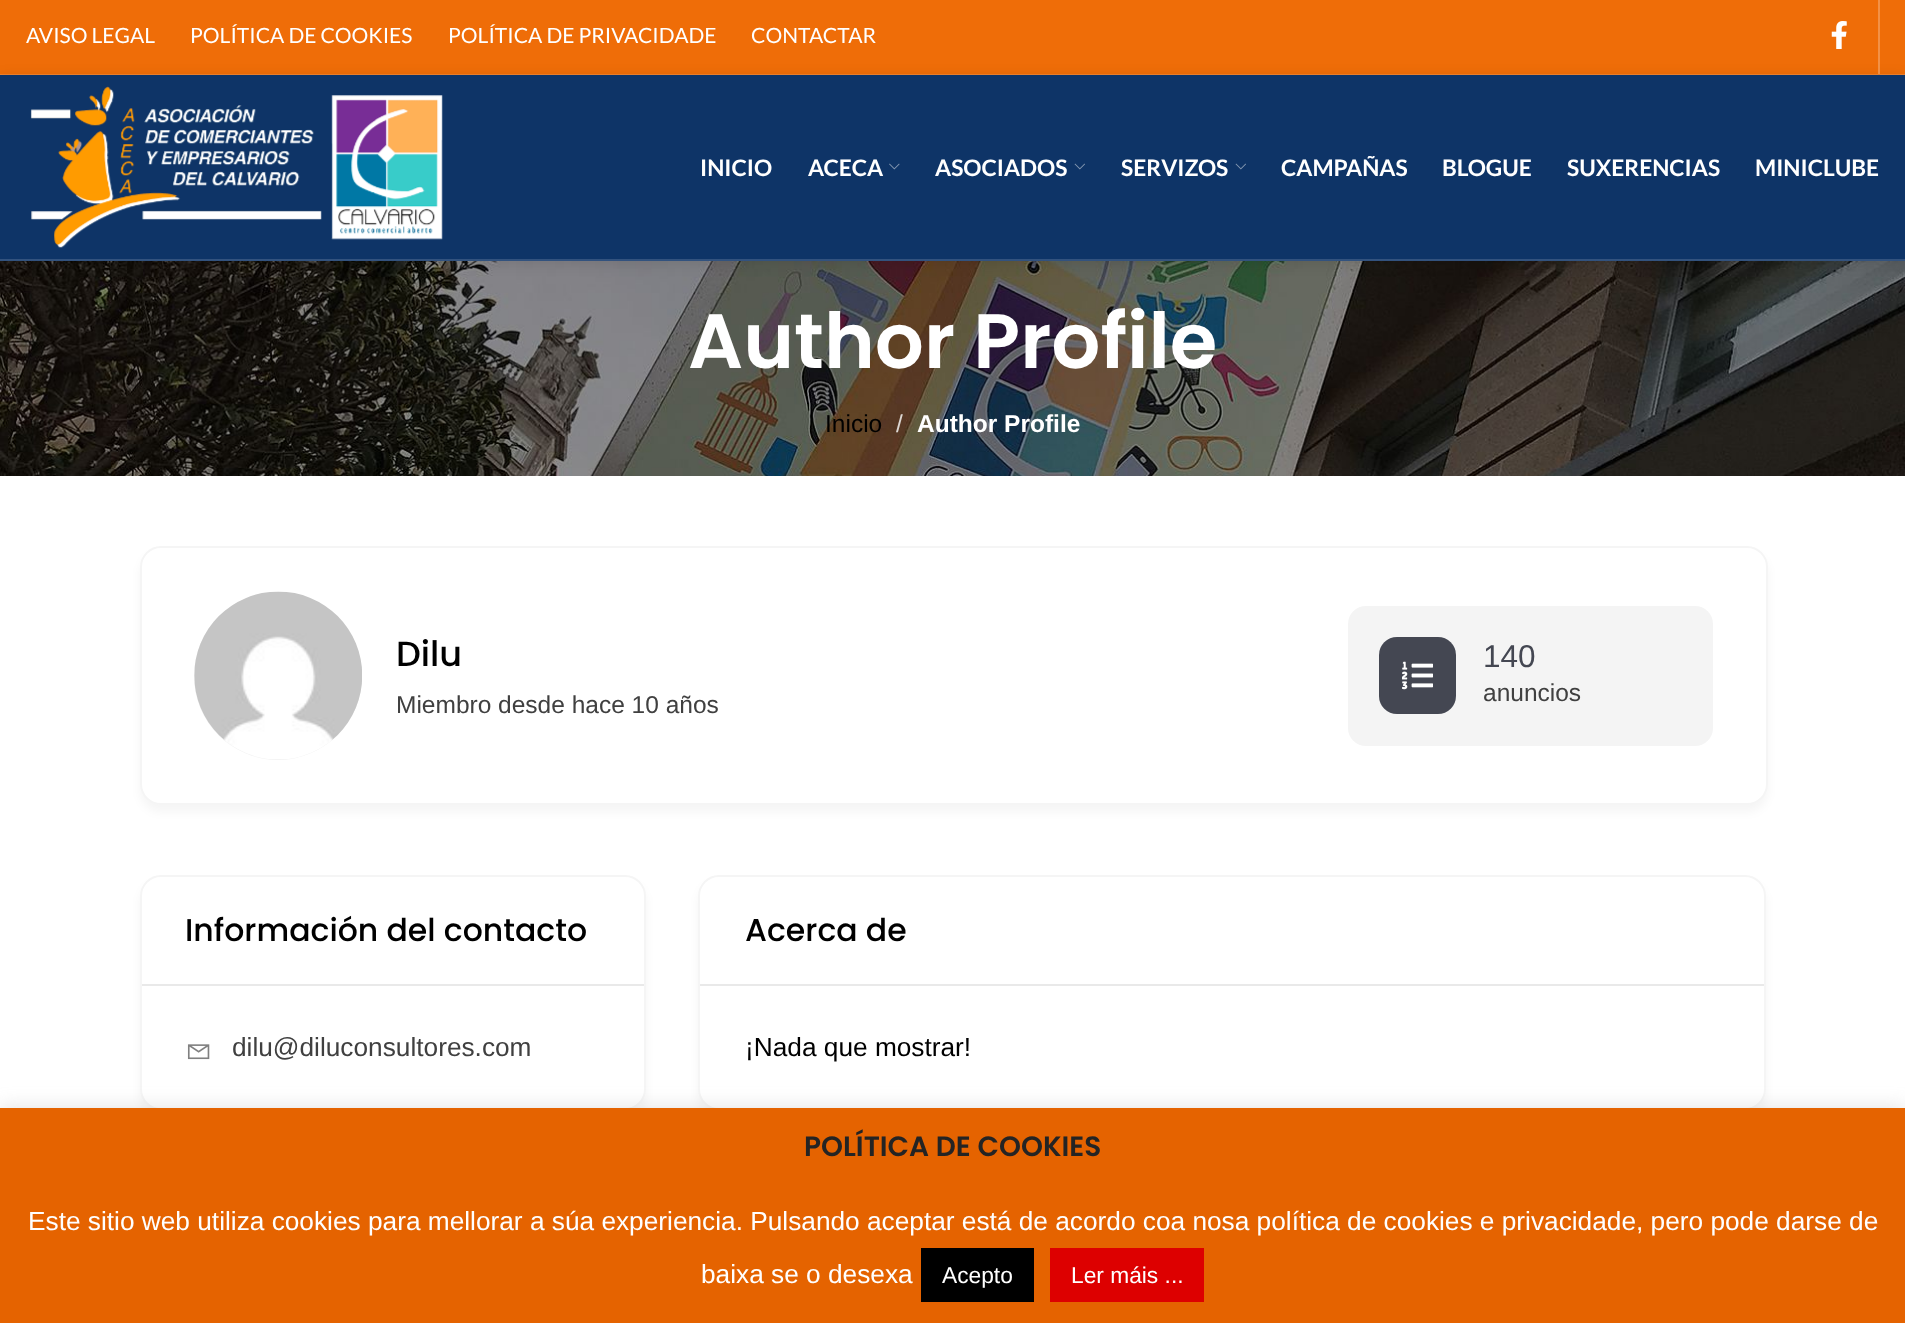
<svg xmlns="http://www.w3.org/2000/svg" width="1905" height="1323">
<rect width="100%" height="100%" fill="#fff"/>
<rect width="1905" height="75" fill="#ef6d08"/>
<rect y="74" width="1905" height="1" fill="#ffffff26"/>
<text x="26" y="43" style="font-family:Lato;font-size:21px;fill:#fff">AVISO LEGAL</text>
<text x="190" y="43" style="font-family:Lato;font-size:21px;fill:#fff">POLÍTICA DE COOKIES</text>
<text x="448" y="43" style="font-family:Lato;font-size:21px;fill:#fff">POLÍTICA DE PRIVACIDADE</text>
<text x="751" y="43" style="font-family:Lato;font-size:21px;fill:#fff">CONTACTAR</text>
<image x="1831" y="21" width="16" height="28" href="media/1.png"/>
<image x="0" y="261" width="1905" height="215" href="media/5.png"/>
<rect y="77" width="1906" height="186" fill="#0000001a" filter="blur(7px)"/>
<rect x="1878" width="2" height="74" fill="#ffffff40"/>
<rect y="75" width="1905" height="184" fill="#0e3467"/>
<rect y="259" width="1905" height="2" fill="#32527e"/>
<image x="30" y="86" width="413" height="162" href="media/2.png"/>
<text x="700" y="176" style="font-family:Lato;font-size:22.75px;font-weight:bold;fill:#fff">INICIO</text>
<text x="808" y="176" style="font-family:Lato;font-size:22.75px;font-weight:bold;fill:#fff">ACECA</text>
<image x="889" y="163" width="11" height="7" href="media/3.png"/>
<text x="935" y="176" style="font-family:Lato;font-size:22.75px;font-weight:bold;fill:#fff">ASOCIADOS</text>
<image x="1074" y="163" width="11" height="7" href="media/4.png"/>
<text x="1121" y="176" style="font-family:Lato;font-size:22.75px;font-weight:bold;fill:#fff">SERVIZOS</text>
<image x="1235" y="163" width="11" height="7" href="media/4.png"/>
<text x="1281" y="176" style="font-family:Lato;font-size:22.75px;font-weight:bold;fill:#fff">CAMPAÑAS</text>
<text x="1442" y="176" style="font-family:Lato;font-size:22.75px;font-weight:bold;fill:#fff">BLOGUE</text>
<text x="1567" y="176" style="font-family:Lato;font-size:22.75px;font-weight:bold;fill:#fff">SUXERENCIAS</text>
<text x="1755" y="176" style="font-family:Lato;font-size:22.75px;font-weight:bold;fill:#fff">MINICLUBE</text>
<text x="688" y="368" style="font-family:Poppins;font-size:77px;font-weight:600;fill:#fff">Author Profile</text>
<text x="825" y="432" style="font-family:Liberation Sans;font-size:24.5px;fill:#000">Inicio</text>
<text x="896" y="432" style="font-family:Liberation Sans;font-size:24.5px;fill:#ddd7d3">/</text>
<text x="917" y="432" style="font-family:Liberation Sans;font-size:24.5px;font-weight:bold;fill:#fff">Author Profile</text>
<rect x="140" y="553" width="1628" height="259" rx="21" fill="#0000000a" filter="blur(5px)"/>
<rect x="141" y="547" width="1626" height="257" rx="20" fill="#fff" stroke="#f5f5f5" stroke-width="2"/>
<circle cx="278" cy="676" r="84" fill="#f4f4f4"/>
<image x="194" y="591" width="168" height="168" href="media/6.png"/>
<text x="396" y="666" style="font-family:Poppins;font-size:35px;font-weight:500;fill:#000">Dilu</text>
<text x="396" y="713" style="font-family:Liberation Sans;font-size:24.5px;fill:#404040">Miembro desde hace 10 años</text>
<rect x="1348" y="606" width="365" height="140" rx="18" fill="#f4f4f4"/>
<rect x="1379" y="637" width="77" height="77" rx="18" fill="#444752"/>
<image x="1402" y="661" width="31" height="29" href="media/7.png"/>
<text x="1483" y="667" style="font-family:Liberation Sans;font-size:31.5px;fill:#444752">140</text>
<text x="1483" y="701" style="font-family:Liberation Sans;font-size:24.5px;fill:#404040">anuncios</text>
<rect x="140" y="882" width="506" height="235" rx="21" fill="#0000000a" filter="blur(5px)"/>
<rect x="141" y="876" width="504" height="233" rx="20" fill="#fff" stroke="#f5f5f5" stroke-width="2"/>
<rect x="142" y="984" width="502" height="2" fill="#e9e9e9"/>
<text x="185" y="941" style="font-family:Poppins;font-size:31.5px;font-weight:500;fill:#000">Información del contacto</text>
<image x="187" y="1044" width="23" height="16" href="media/8.png"/>
<text x="232" y="1056" style="font-family:Liberation Sans;font-size:26.25px;fill:#404040">dilu@diluconsultores.com</text>
<rect x="698" y="882" width="1068" height="235" rx="21" fill="#0000000a" filter="blur(5px)"/>
<rect x="699" y="876" width="1066" height="233" rx="20" fill="#fff" stroke="#f5f5f5" stroke-width="2"/>
<rect x="700" y="984" width="1064" height="2" fill="#e9e9e9"/>
<text x="745" y="941" style="font-family:Poppins;font-size:31.5px;font-weight:500;fill:#000">Acerca de</text>
<text x="745" y="1056" style="font-family:Liberation Sans;font-size:26.25px;fill:#000">¡Nada que mostrar!</text>
<rect y="1106" width="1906" height="215" fill="#acabab4d" filter="blur(9px)"/>
<rect y="1108" width="1905" height="215" fill="#e56300"/>
<text x="804" y="1156" style="font-family:Poppins;font-size:28px;font-weight:600;fill:#242424">POLÍTICA DE COOKIES</text>
<text x="28" y="1230" style="font-family:Liberation Sans;font-size:26.25px;fill:#fff">Este sitio web utiliza cookies para mellorar a súa experiencia. Pulsando aceptar está de acordo coa nosa política de cookies e privacidade, pero pode darse de</text>
<text x="701" y="1283" style="font-family:Liberation Sans;font-size:26.25px;fill:#fff">baixa se o desexa</text>
<rect x="921" y="1248" width="113" height="54" fill="#000"/>
<text x="942" y="1283" style="font-family:Liberation Sans;font-size:22.75px;fill:#fff">Acepto</text>
<rect x="1050" y="1248" width="154" height="54" fill="#d00"/>
<text x="1071" y="1283" style="font-family:Liberation Sans;font-size:22.75px;fill:#fff">Ler máis ...</text>
</svg>
